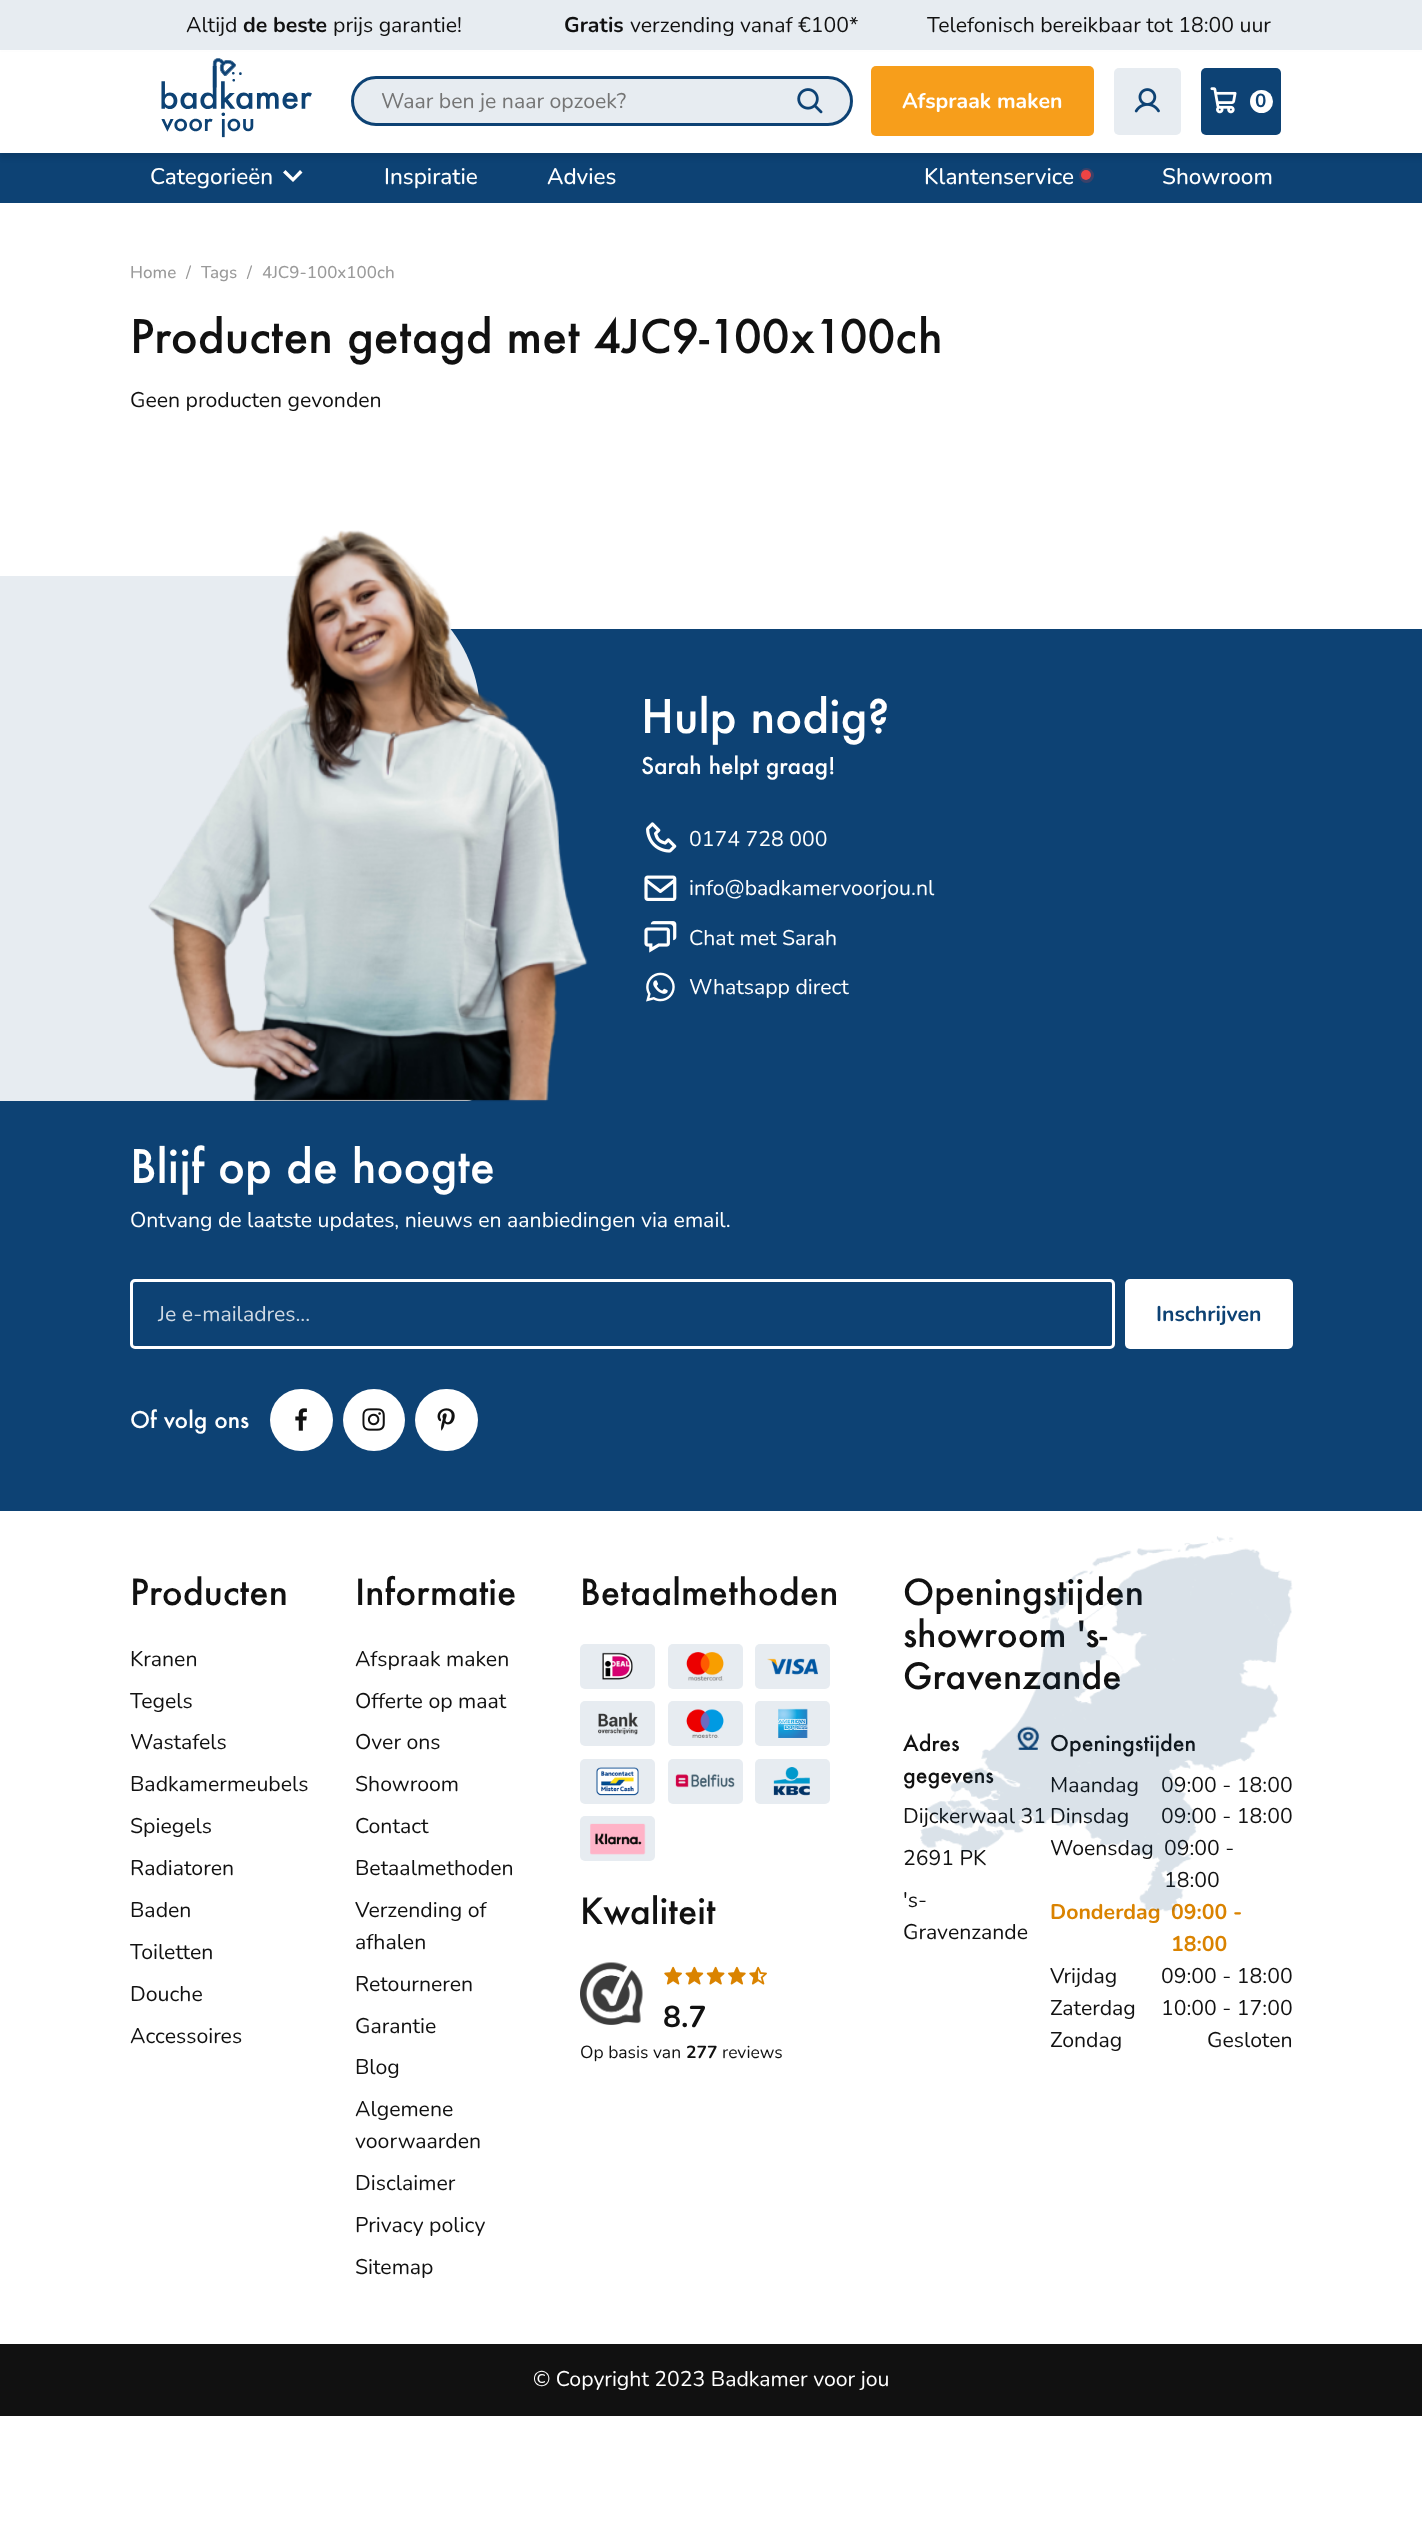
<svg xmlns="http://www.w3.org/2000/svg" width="1422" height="2532">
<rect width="100%" height="100%" fill="#fff"/>
<rect width="1422" height="50" fill="#e7ecf1"/>
<text x="186" y="32" style="font-family:Nunito;font-size:21.25px;fill:#111">Altijd</text>
<text x="243" y="32" style="font-family:Nunito;font-size:21.25px;font-weight:bold;fill:#111">de beste</text>
<text x="333" y="32" style="font-family:Nunito;font-size:21.25px;fill:#111">prijs garantie!</text>
<text x="564" y="32" style="font-family:Nunito;font-size:21.25px;font-weight:bold;fill:#111">Gratis</text>
<text x="630" y="32" style="font-family:Nunito;font-size:21.25px;fill:#111">verzending vanaf €100*</text>
<text x="927" y="32" style="font-family:Nunito;font-size:21.25px;fill:#111">Telefonisch bereikbaar tot 18:00 uur</text>
<rect y="153" width="1422" height="50" fill="#0d4274"/>
<rect y="55" width="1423" height="103" fill="#0000001a" filter="blur(2.5px)"/>
<rect y="52" width="1422" height="101" fill="#fff"/>
<image x="161" y="58" width="151" height="80" href="media/1.png"/>
<rect x="352.5" y="77.5" width="499" height="47" rx="23.5" fill="#e7ecf1" stroke="#0d4274" stroke-width="3"/>
<text x="381" y="108" style="font-family:Nunito;font-size:21.25px;fill:#757575">Waar ben je naar opzoek?</text>
<image x="797" y="88" width="26" height="26" href="media/2.png"/>
<rect x="871" y="66" width="223" height="70" rx="5" fill="#f79e1b"/>
<text x="902" y="108" style="font-family:Nunito;font-size:21.25px;font-weight:bold;fill:#fff">Afspraak maken</text>
<rect x="1114" y="68" width="67" height="67" rx="5" fill="#e7ecf1"/>
<image x="1134" y="88" width="26" height="25" href="media/3.png"/>
<rect x="1201" y="68" width="80" height="67" rx="5" fill="#0d4274"/>
<image x="1210" y="87" width="27" height="27" href="media/4.png"/>
<circle cx="1261.5" cy="101.5" r="11.5" fill="#fff"/>
<text x="1255" y="107" style="font-family:Nunito;font-size:19px;font-weight:bold;fill:#0d4274">0</text>
<text x="150" y="184" style="font-family:Nunito;font-size:22.5px;font-weight:500;fill:#fff">Categorieën</text>
<path d="M300 170l-7 7.5l-7.5-7.5l-2.5 2.5l10 9.5l9.5-9.5z" fill="#fff"/>
<text x="384" y="184" style="font-family:Nunito;font-size:22.5px;font-weight:500;fill:#fff">Inspiratie</text>
<text x="547" y="184" style="font-family:Nunito;font-size:22.5px;font-weight:500;fill:#fff">Advies</text>
<text x="924" y="184" style="font-family:Nunito;font-size:22.5px;font-weight:500;fill:#fff">Klantenservice</text>
<circle cx="1086.5" cy="175.5" r="6" fill="none" stroke="#3a426a" stroke-width="3"/>
<circle cx="1086" cy="175" r="5" fill="#ef4444"/>
<text x="1162" y="184" style="font-family:Nunito;font-size:22.5px;font-weight:500;fill:#fff">Showroom</text>
<text x="130" y="278" style="font-family:Nunito;font-size:17px;font-weight:500;fill:#9a9a9a">Home</text>
<text x="186" y="278" style="font-family:Nunito;font-size:17px;font-weight:500;fill:#9a9a9a">/</text>
<text x="201" y="278" style="font-family:Nunito;font-size:17px;font-weight:500;fill:#9a9a9a">Tags</text>
<text x="247" y="278" style="font-family:Nunito;font-size:17px;font-weight:500;fill:#9a9a9a">/</text>
<text x="262" y="278" style="font-family:Nunito;font-size:17px;font-weight:500;fill:#9a9a9a">4JC9-100x100ch</text>
<text x="130" y="353" style="font-family:Futura;font-size:45px;font-weight:500;fill:#111">Producten getagd met 4JC9-100x100ch</text>
<text x="130" y="407" style="font-family:Nunito;font-size:21.25px;fill:#111">Geen producten gevonden</text>
<rect y="629" width="1422" height="882" fill="#0d4274"/>
<path d="M-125 576h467c76 0 138 62 138 138v374c0 7-6 13-13 13h-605v-512c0-7 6-13 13-13z" fill="#e7ecf1"/>
<image x="148" y="530" width="440" height="572" href="media/5.png"/>
<text x="641" y="733" style="font-family:Futura;font-size:45px;font-weight:500;fill:#fff">Hulp nodig?</text>
<text x="641" y="774" style="font-family:Futura;font-size:22.5px;font-weight:500;fill:#fff">Sarah helpt graag!</text>
<image x="646" y="822" width="31" height="31" href="media/6.png"/>
<text x="689" y="846" style="font-family:Nunito;font-size:21.25px;fill:#fff">0174 728 000</text>
<image x="644" y="875" width="33" height="26" href="media/7.png"/>
<text x="689" y="895" style="font-family:Nunito;font-size:21.25px;fill:#fff">info@badkamervoorjou.nl</text>
<image x="644" y="921" width="33" height="32" href="media/8.png"/>
<text x="689" y="945" style="font-family:Nunito;font-size:21.25px;fill:#fff">Chat met Sarah</text>
<image x="646" y="972" width="29" height="30" href="media/9.png"/>
<text x="689" y="994" style="font-family:Nunito;font-size:21.25px;fill:#fff">Whatsapp direct</text>
<text x="130" y="1183" style="font-family:Futura;font-size:45px;font-weight:500;fill:#fff">Blijf op de hoogte</text>
<text x="130" y="1227" style="font-family:Nunito;font-size:21.25px;fill:#fff">Ontvang de laatste updates, nieuws en aanbiedingen via email.</text>
<rect x="131.5" y="1280.5" width="982" height="67" rx="3.5" fill="none" stroke="#fff" stroke-width="3"/>
<text x="158" y="1321" style="font-family:Nunito;font-size:21.25px;fill:#cfd9e3">Je e-mailadres...</text>
<rect x="1125" y="1279" width="168" height="70" rx="5" fill="#fff"/>
<text x="1156" y="1321" style="font-family:Nunito;font-size:21.25px;font-weight:bold;fill:#0d4274">Inschrijven</text>
<text x="130" y="1428" style="font-family:Futura;font-size:22.5px;font-weight:500;fill:#fff">Of volg ons</text>
<rect x="270" y="1389" width="63" height="62" rx="31" fill="#fff"/>
<image x="295" y="1408" width="12" height="23" href="media/10.png"/>
<circle cx="374" cy="1420" r="31" fill="#fff"/>
<image x="362" y="1408" width="23" height="23" href="media/11.png"/>
<rect x="415" y="1389" width="63" height="62" rx="31" fill="#fff"/>
<image x="437" y="1408" width="18" height="23" href="media/12.png"/>
<text x="130" y="1605" style="font-family:Futura;font-size:35px;font-weight:500;fill:#111">Producten</text>
<text x="130" y="1666" style="font-family:Nunito;font-size:21.25px;fill:#111">Kranen</text>
<text x="130" y="1708" style="font-family:Nunito;font-size:21.25px;fill:#111">Tegels</text>
<text x="130" y="1749" style="font-family:Nunito;font-size:21.25px;fill:#111">Wastafels</text>
<text x="130" y="1791" style="font-family:Nunito;font-size:21.25px;fill:#111">Badkamermeubels</text>
<text x="130" y="1833" style="font-family:Nunito;font-size:21.25px;fill:#111">Spiegels</text>
<text x="130" y="1875" style="font-family:Nunito;font-size:21.25px;fill:#111">Radiatoren</text>
<text x="130" y="1917" style="font-family:Nunito;font-size:21.25px;fill:#111">Baden</text>
<text x="130" y="1959" style="font-family:Nunito;font-size:21.25px;fill:#111">Toiletten</text>
<text x="130" y="2001" style="font-family:Nunito;font-size:21.25px;fill:#111">Douche</text>
<text x="130" y="2043" style="font-family:Nunito;font-size:21.25px;fill:#111">Accessoires</text>
<text x="355" y="1605" style="font-family:Futura;font-size:35px;font-weight:500;fill:#111">Informatie</text>
<text x="355" y="1666" style="font-family:Nunito;font-size:21.25px;fill:#111">Afspraak maken</text>
<text x="355" y="1708" style="font-family:Nunito;font-size:21.25px;fill:#111">Offerte op maat</text>
<text x="355" y="1749" style="font-family:Nunito;font-size:21.25px;fill:#111">Over ons</text>
<text x="355" y="1791" style="font-family:Nunito;font-size:21.25px;fill:#111">Showroom</text>
<text x="355" y="1833" style="font-family:Nunito;font-size:21.25px;fill:#111">Contact</text>
<text x="355" y="1875" style="font-family:Nunito;font-size:21.25px;fill:#111">Betaalmethoden</text>
<text x="355" y="1917" style="font-family:Nunito;font-size:21.25px;fill:#111">Verzending of</text>
<text x="355" y="1949" style="font-family:Nunito;font-size:21.25px;fill:#111">afhalen</text>
<text x="355" y="1991" style="font-family:Nunito;font-size:21.25px;fill:#111">Retourneren</text>
<text x="355" y="2033" style="font-family:Nunito;font-size:21.25px;fill:#111">Garantie</text>
<text x="355" y="2074" style="font-family:Nunito;font-size:21.25px;fill:#111">Blog</text>
<text x="355" y="2116" style="font-family:Nunito;font-size:21.25px;fill:#111">Algemene</text>
<text x="355" y="2148" style="font-family:Nunito;font-size:21.25px;fill:#111">voorwaarden</text>
<text x="355" y="2190" style="font-family:Nunito;font-size:21.25px;fill:#111">Disclaimer</text>
<text x="355" y="2232" style="font-family:Nunito;font-size:21.25px;fill:#111">Privacy policy</text>
<text x="355" y="2274" style="font-family:Nunito;font-size:21.25px;fill:#111">Sitemap</text>
<text x="580" y="1605" style="font-family:Futura;font-size:35px;font-weight:500;fill:#111">Betaalmethoden</text>
<rect x="580" y="1644" width="75" height="45" rx="5" fill="#e7ecf1"/>
<image x="602" y="1652" width="31" height="28" href="media/13.png"/>
<rect x="668" y="1644" width="75" height="45" rx="5" fill="#e7ecf1"/>
<image x="686" y="1652" width="38" height="29" href="media/14.png"/>
<rect x="755" y="1644" width="75" height="45" rx="5" fill="#e7ecf1"/>
<image x="767" y="1658" width="51" height="17" href="media/15.png"/>
<rect x="580" y="1701" width="75" height="45" rx="5" fill="#e7ecf1"/>
<image x="598" y="1712" width="41" height="23" href="media/16.png"/>
<rect x="668" y="1701" width="75" height="45" rx="5" fill="#e7ecf1"/>
<image x="686" y="1709" width="38" height="29" href="media/17.png"/>
<rect x="755" y="1701" width="75" height="45" rx="5" fill="#e7ecf1"/>
<image x="778" y="1708" width="30" height="30" href="media/18.png"/>
<rect x="580" y="1759" width="75" height="45" rx="5" fill="#e7ecf1"/>
<image x="596" y="1767" width="43" height="29" href="media/19.png"/>
<rect x="668" y="1759" width="75" height="45" rx="5" fill="#e7ecf1"/>
<image x="675" y="1774" width="60" height="14" href="media/20.png"/>
<rect x="755" y="1759" width="75" height="45" rx="5" fill="#e7ecf1"/>
<image x="773" y="1767" width="37" height="29" href="media/21.png"/>
<rect x="580" y="1816" width="75" height="45" rx="5" fill="#e7ecf1"/>
<image x="590" y="1823" width="56" height="32" href="media/22.png"/>
<text x="580" y="1924" style="font-family:Futura;font-size:35px;font-weight:500;fill:#111">Kwaliteit</text>
<image x="580" y="1962" width="63" height="63" href="media/23.png"/>
<image x="664" y="1966" width="18" height="19" href="media/24.png"/>
<image x="685" y="1966" width="19" height="19" href="media/25.png"/>
<image x="706" y="1966" width="19" height="19" href="media/26.png"/>
<image x="728" y="1966" width="18" height="19" href="media/27.png"/>
<image x="749" y="1966" width="18" height="19" href="media/28.png"/>
<text x="663" y="2027" style="font-family:Nunito;font-size:30px;font-weight:bold;fill:#111">8.7</text>
<text x="580" y="2058" style="font-family:Nunito;font-size:17.5px;fill:#111">Op basis van</text>
<text x="686" y="2058" style="font-family:Nunito;font-size:17.5px;font-weight:bold;fill:#111">277</text>
<text x="722" y="2058" style="font-family:Nunito;font-size:17.5px;fill:#111">reviews</text>
<text x="903" y="1605" style="font-family:Futura;font-size:35px;font-weight:500;fill:#111">Openingstijden</text>
<text x="903" y="1647" style="font-family:Futura;font-size:35px;font-weight:500;fill:#111">showroom 's-</text>
<text x="903" y="1689" style="font-family:Futura;font-size:35px;font-weight:500;fill:#111">Gravenzande</text>
<text x="903" y="1751" style="font-family:Futura;font-size:21.25px;font-weight:500;fill:#111">Adres</text>
<text x="903" y="1783" style="font-family:Futura;font-size:21.25px;font-weight:500;fill:#111">gegevens</text>
<text x="903" y="1823" style="font-family:Nunito;font-size:21.25px;fill:#111">Dijckerwaal 31</text>
<text x="903" y="1865" style="font-family:Nunito;font-size:21.25px;fill:#111">2691 PK</text>
<text x="903" y="1907" style="font-family:Nunito;font-size:21.25px;fill:#111">'s-</text>
<text x="1050" y="1751" style="font-family:Futura;font-size:21.25px;font-weight:500;fill:#111">Openingstijden</text>
<text x="1050" y="1792" style="font-family:Nunito;font-size:21.25px;fill:#111">Maandag</text>
<text x="1161" y="1792" style="font-family:Nunito;font-size:21.25px;fill:#111">09:00 - 18:00</text>
<text x="1050" y="1823" style="font-family:Nunito;font-size:21.25px;fill:#111">Dinsdag</text>
<text x="1161" y="1823" style="font-family:Nunito;font-size:21.25px;fill:#111">09:00 - 18:00</text>
<text x="1050" y="1855" style="font-family:Nunito;font-size:21.25px;fill:#111">Woensdag</text>
<text x="1164" y="1855" style="font-family:Nunito;font-size:21.25px;fill:#111">09:00 -</text>
<text x="1164" y="1887" style="font-family:Nunito;font-size:21.25px;fill:#111">18:00</text>
<text x="1050" y="1919" style="font-family:Nunito;font-size:21.25px;font-weight:bold;fill:#da8300">Donderdag</text>
<text x="1171" y="1919" style="font-family:Nunito;font-size:21.25px;font-weight:bold;fill:#da8300">09:00 -</text>
<image x="920" y="1536" width="373" height="376" href="media/29.png"/>
<text x="903" y="1939" style="font-family:Nunito;font-size:21.25px;fill:#111">Gravenzande</text>
<text x="1171" y="1951" style="font-family:Nunito;font-size:21.25px;font-weight:bold;fill:#da8300">18:00</text>
<text x="1050" y="1983" style="font-family:Nunito;font-size:21.25px;fill:#111">Vrijdag</text>
<text x="1161" y="1983" style="font-family:Nunito;font-size:21.25px;fill:#111">09:00 - 18:00</text>
<text x="1050" y="2015" style="font-family:Nunito;font-size:21.25px;fill:#111">Zaterdag</text>
<text x="1161" y="2015" style="font-family:Nunito;font-size:21.25px;fill:#111">10:00 - 17:00</text>
<text x="1050" y="2047" style="font-family:Nunito;font-size:21.25px;fill:#111">Zondag</text>
<text x="1207" y="2047" style="font-family:Nunito;font-size:21.25px;fill:#111">Gesloten</text>
<rect y="2344" width="1422" height="72" fill="#111"/>
<text x="533" y="2386" style="font-family:Nunito;font-size:21.25px;fill:#fff">© Copyright 2023 Badkamer voor jou</text>
</svg>
